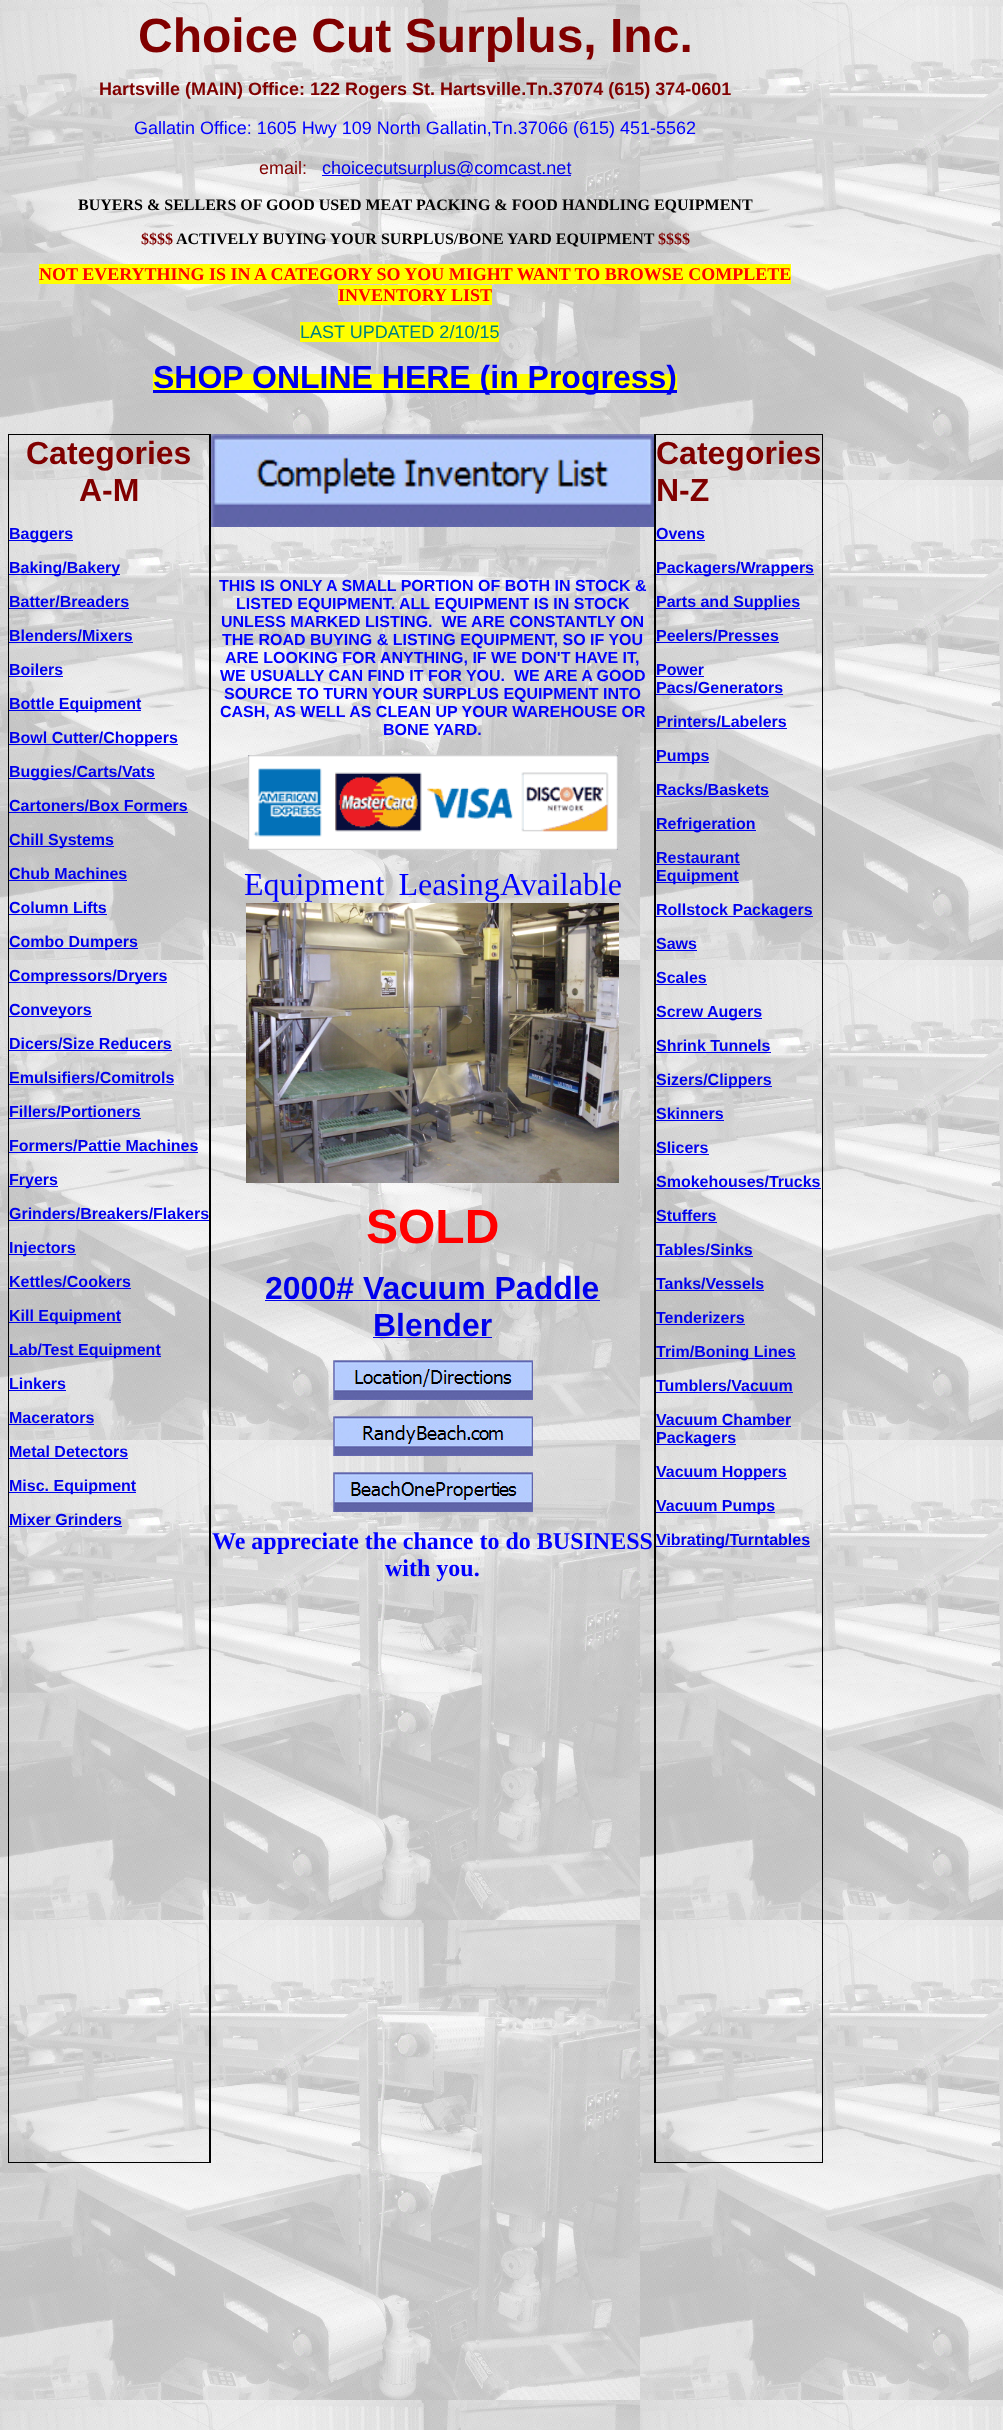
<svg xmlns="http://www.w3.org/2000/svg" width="1003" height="2430">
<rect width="100%" height="100%" fill="#fff"/>
<image x="0" y="0" width="1003" height="2430" href="media/1.png"/>
<text x="138" y="52" style="font-family:Liberation Sans;font-size:48px;font-weight:bold;fill:#800000">Choice Cut Surplus, Inc.</text>
<text x="99" y="95" style="font-family:Liberation Sans;font-size:18px;font-weight:bold;fill:#800000">Hartsville (MAIN) Office: 122 Rogers St. Hartsville.Tn.37074 (615) 374-0601</text>
<text x="134" y="134" style="font-family:Liberation Sans;font-size:18px;fill:#00f">Gallatin Office: 1605 Hwy 109 North Gallatin,Tn.37066 (615) 451-5562</text>
<text x="259" y="174" style="font-family:Liberation Sans;font-size:18px;fill:#800000">email:</text>
<rect x="322" y="175" width="249" height="1" fill="#00e"/>
<text x="322" y="174" style="font-family:Liberation Sans;font-size:18px;fill:#00e">choicecutsurplus@comcast.net</text>
<text x="78" y="210" style="font-family:Liberation Serif;font-size:16px;font-weight:bold;fill:#000">BUYERS &amp; SELLERS OF GOOD USED MEAT PACKING &amp; FOOD HANDLING EQUIPMENT</text>
<text x="141" y="244" style="font-family:Liberation Serif;font-size:16px;font-weight:bold;fill:#800000">$$$$</text>
<text x="176" y="244" style="font-family:Liberation Serif;font-size:16px;font-weight:bold;fill:#000">ACTIVELY BUYING YOUR SURPLUS/BONE YARD EQUIPMENT</text>
<text x="658" y="244" style="font-family:Liberation Serif;font-size:16px;font-weight:bold;fill:#800000">$$$$</text>
<rect x="39" y="264" width="752" height="20" fill="#ff0"/>
<text x="39" y="280" style="font-family:Liberation Serif;font-size:18px;font-weight:bold;fill:#f00">NOT EVERYTHING IS IN A CATEGORY SO YOU MIGHT WANT TO BROWSE COMPLETE</text>
<rect x="338" y="285" width="154" height="20" fill="#ff0"/>
<text x="338" y="301" style="font-family:Liberation Serif;font-size:18px;font-weight:bold;fill:#f00">INVENTORY LIST</text>
<rect x="300" y="322" width="199" height="20" fill="#ff0"/>
<text x="300" y="338" style="font-family:Liberation Sans;font-size:18px;fill:#008080">LAST UPDATED 2/10/15</text>
<rect x="153" y="374" width="524" height="16" fill="#ff0"/>
<rect x="153" y="390" width="524" height="3" fill="#00e"/>
<text x="153" y="388" style="font-family:Liberation Sans;font-size:32px;font-weight:bold;fill:#00e">SHOP ONLINE HERE (in Progress)</text>
<rect x="8.5" y="434.5" width="201" height="1728" fill="none" stroke="#000"/>
<text x="26" y="464" style="font-family:Liberation Sans;font-size:32px;font-weight:bold;fill:#800000">Categories</text>
<text x="79" y="501" style="font-family:Liberation Sans;font-size:32px;font-weight:bold;fill:#800000">A-M</text>
<rect x="9" y="540" width="64" height="1" fill="#00e"/>
<text x="9" y="539" style="font-family:Liberation Sans;font-size:16px;font-weight:bold;fill:#00e">Baggers</text>
<rect x="9" y="574" width="111" height="1" fill="#00e"/>
<text x="9" y="573" style="font-family:Liberation Sans;font-size:16px;font-weight:bold;fill:#00e">Baking/Bakery</text>
<text x="9" y="607" style="font-family:Liberation Sans;font-size:16px;font-weight:bold;fill:#00e">Batter/Breaders</text>
<rect x="9" y="608" width="120" height="1" fill="#00e"/>
<text x="9" y="641" style="font-family:Liberation Sans;font-size:16px;font-weight:bold;fill:#00e">Blenders/Mixers</text>
<rect x="9" y="642" width="124" height="1" fill="#00e"/>
<text x="9" y="675" style="font-family:Liberation Sans;font-size:16px;font-weight:bold;fill:#00e">Boilers</text>
<rect x="9" y="676" width="54" height="1" fill="#00e"/>
<rect x="9" y="710" width="132" height="1" fill="#00e"/>
<text x="9" y="709" style="font-family:Liberation Sans;font-size:16px;font-weight:bold;fill:#00e">Bottle Equipment</text>
<rect x="9" y="744" width="169" height="1" fill="#00e"/>
<text x="9" y="743" style="font-family:Liberation Sans;font-size:16px;font-weight:bold;fill:#00e">Bowl Cutter/Choppers</text>
<rect x="9" y="778" width="146" height="1" fill="#00e"/>
<text x="9" y="777" style="font-family:Liberation Sans;font-size:16px;font-weight:bold;fill:#00e">Buggies/Carts/Vats</text>
<text x="9" y="811" style="font-family:Liberation Sans;font-size:16px;font-weight:bold;fill:#00e">Cartoners/Box Formers</text>
<rect x="9" y="812" width="179" height="1" fill="#00e"/>
<rect x="9" y="846" width="105" height="1" fill="#00e"/>
<text x="9" y="845" style="font-family:Liberation Sans;font-size:16px;font-weight:bold;fill:#00e">Chill Systems</text>
<text x="9" y="879" style="font-family:Liberation Sans;font-size:16px;font-weight:bold;fill:#00e">Chub Machines</text>
<rect x="9" y="880" width="118" height="1" fill="#00e"/>
<text x="9" y="913" style="font-family:Liberation Sans;font-size:16px;font-weight:bold;fill:#00e">Column Lifts</text>
<rect x="9" y="914" width="98" height="1" fill="#00e"/>
<rect x="9" y="948" width="129" height="1" fill="#00e"/>
<text x="9" y="947" style="font-family:Liberation Sans;font-size:16px;font-weight:bold;fill:#00e">Combo Dumpers</text>
<rect x="9" y="982" width="158" height="1" fill="#00e"/>
<text x="9" y="981" style="font-family:Liberation Sans;font-size:16px;font-weight:bold;fill:#00e">Compressors/Dryers</text>
<rect x="9" y="1016" width="83" height="1" fill="#00e"/>
<text x="9" y="1015" style="font-family:Liberation Sans;font-size:16px;font-weight:bold;fill:#00e">Conveyors</text>
<text x="9" y="1049" style="font-family:Liberation Sans;font-size:16px;font-weight:bold;fill:#00e">Dicers/Size Reducers</text>
<rect x="9" y="1050" width="163" height="1" fill="#00e"/>
<text x="9" y="1083" style="font-family:Liberation Sans;font-size:16px;font-weight:bold;fill:#00e">Emulsifiers/Comitrols</text>
<rect x="9" y="1084" width="165" height="1" fill="#00e"/>
<text x="9" y="1117" style="font-family:Liberation Sans;font-size:16px;font-weight:bold;fill:#00e">Fillers/Portioners</text>
<rect x="9" y="1118" width="132" height="1" fill="#00e"/>
<text x="9" y="1151" style="font-family:Liberation Sans;font-size:16px;font-weight:bold;fill:#00e">Formers/Pattie Machines</text>
<rect x="9" y="1152" width="189" height="1" fill="#00e"/>
<rect x="9" y="1186" width="49" height="1" fill="#00e"/>
<text x="9" y="1185" style="font-family:Liberation Sans;font-size:16px;font-weight:bold;fill:#00e">Fryers</text>
<text x="9" y="1219" style="font-family:Liberation Sans;font-size:16px;font-weight:bold;fill:#00e">Grinders/Breakers/Flakers</text>
<rect x="9" y="1220" width="200" height="1" fill="#00e"/>
<rect x="9" y="1254" width="67" height="1" fill="#00e"/>
<text x="9" y="1253" style="font-family:Liberation Sans;font-size:16px;font-weight:bold;fill:#00e">Injectors</text>
<text x="9" y="1287" style="font-family:Liberation Sans;font-size:16px;font-weight:bold;fill:#00e">Kettles/Cookers</text>
<rect x="9" y="1288" width="122" height="1" fill="#00e"/>
<rect x="9" y="1322" width="112" height="1" fill="#00e"/>
<text x="9" y="1321" style="font-family:Liberation Sans;font-size:16px;font-weight:bold;fill:#00e">Kill Equipment</text>
<rect x="9" y="1356" width="152" height="1" fill="#00e"/>
<text x="9" y="1355" style="font-family:Liberation Sans;font-size:16px;font-weight:bold;fill:#00e">Lab/Test Equipment</text>
<text x="9" y="1389" style="font-family:Liberation Sans;font-size:16px;font-weight:bold;fill:#00e">Linkers</text>
<rect x="9" y="1390" width="57" height="1" fill="#00e"/>
<text x="9" y="1423" style="font-family:Liberation Sans;font-size:16px;font-weight:bold;fill:#00e">Macerators</text>
<rect x="9" y="1424" width="85" height="1" fill="#00e"/>
<text x="9" y="1457" style="font-family:Liberation Sans;font-size:16px;font-weight:bold;fill:#00e">Metal Detectors</text>
<rect x="9" y="1458" width="119" height="1" fill="#00e"/>
<rect x="9" y="1492" width="127" height="1" fill="#00e"/>
<text x="9" y="1491" style="font-family:Liberation Sans;font-size:16px;font-weight:bold;fill:#00e">Misc. Equipment</text>
<text x="9" y="1525" style="font-family:Liberation Sans;font-size:16px;font-weight:bold;fill:#00e">Mixer Grinders</text>
<rect x="9" y="1526" width="113" height="1" fill="#00e"/>
<rect x="654" y="434" width="1" height="1729" fill="#000"/>
<rect x="210" y="434" width="1" height="1729" fill="#000"/>
<image x="211" y="434" width="443" height="93" href="media/2.png"/>
<text x="219" y="591" style="font-family:Liberation Sans;font-size:16px;font-weight:bold;fill:#00f">THIS IS ONLY A SMALL PORTION OF BOTH IN STOCK &amp;</text>
<text x="236" y="609" style="font-family:Liberation Sans;font-size:16px;font-weight:bold;fill:#00f">LISTED EQUIPMENT. ALL EQUIPMENT IS IN STOCK</text>
<text x="221" y="627" style="font-family:Liberation Sans;font-size:16px;font-weight:bold;fill:#00f" xml:space="preserve">UNLESS MARKED LISTING.  WE ARE CONSTANTLY ON</text>
<text x="222" y="645" style="font-family:Liberation Sans;font-size:16px;font-weight:bold;fill:#00f">THE ROAD BUYING &amp; LISTING EQUIPMENT, SO IF YOU</text>
<text x="225" y="663" style="font-family:Liberation Sans;font-size:16px;font-weight:bold;fill:#00f">ARE LOOKING FOR ANYTHING, IF WE DON'T HAVE IT,</text>
<text x="220" y="681" style="font-family:Liberation Sans;font-size:16px;font-weight:bold;fill:#00f" xml:space="preserve">WE USUALLY CAN FIND IT FOR YOU.  WE ARE A GOOD</text>
<text x="224" y="699" style="font-family:Liberation Sans;font-size:16px;font-weight:bold;fill:#00f">SOURCE TO TURN YOUR SURPLUS EQUIPMENT INTO</text>
<text x="220" y="717" style="font-family:Liberation Sans;font-size:16px;font-weight:bold;fill:#00f">CASH, AS WELL AS CLEAN UP YOUR WAREHOUSE OR</text>
<text x="383" y="735" style="font-family:Liberation Sans;font-size:16px;font-weight:bold;fill:#00f">BONE YARD.</text>
<image x="248" y="755" width="370" height="95" href="media/3.png"/>
<text x="244" y="895" word-spacing="6" style="font-family:Liberation Serif;font-size:32px;fill:#00f">Equipment Leasing</text>
<text x="500" y="895" style="font-family:Liberation Serif;font-size:32px;fill:#00f">Available</text>
<rect x="655.5" y="434.5" width="167" height="1728" fill="none" stroke="#000"/>
<text x="656" y="464" style="font-family:Liberation Sans;font-size:32px;font-weight:bold;fill:#800000">Categories</text>
<text x="656" y="501" style="font-family:Liberation Sans;font-size:32px;font-weight:bold;fill:#800000">N-Z</text>
<text x="656" y="539" style="font-family:Liberation Sans;font-size:16px;font-weight:bold;fill:#00e">Ovens</text>
<rect x="656" y="540" width="49" height="1" fill="#00e"/>
<rect x="656" y="574" width="158" height="1" fill="#00e"/>
<text x="656" y="573" style="font-family:Liberation Sans;font-size:16px;font-weight:bold;fill:#00e">Packagers/Wrappers</text>
<rect x="656" y="608" width="144" height="1" fill="#00e"/>
<text x="656" y="607" style="font-family:Liberation Sans;font-size:16px;font-weight:bold;fill:#00e">Parts and Supplies</text>
<text x="656" y="641" style="font-family:Liberation Sans;font-size:16px;font-weight:bold;fill:#00e">Peelers/Presses</text>
<rect x="656" y="642" width="123" height="1" fill="#00e"/>
<text x="656" y="675" style="font-family:Liberation Sans;font-size:16px;font-weight:bold;fill:#00e">Power</text>
<rect x="656" y="676" width="48" height="1" fill="#00e"/>
<text x="656" y="693" style="font-family:Liberation Sans;font-size:16px;font-weight:bold;fill:#00e">Pacs/Generators</text>
<rect x="656" y="694" width="127" height="1" fill="#00e"/>
<text x="656" y="727" style="font-family:Liberation Sans;font-size:16px;font-weight:bold;fill:#00e">Printers/Labelers</text>
<rect x="656" y="728" width="131" height="1" fill="#00e"/>
<rect x="656" y="762" width="53" height="1" fill="#00e"/>
<text x="656" y="761" style="font-family:Liberation Sans;font-size:16px;font-weight:bold;fill:#00e">Pumps</text>
<text x="656" y="795" style="font-family:Liberation Sans;font-size:16px;font-weight:bold;fill:#00e">Racks/Baskets</text>
<rect x="656" y="796" width="113" height="1" fill="#00e"/>
<rect x="656" y="830" width="100" height="1" fill="#00e"/>
<text x="656" y="829" style="font-family:Liberation Sans;font-size:16px;font-weight:bold;fill:#00e">Refrigeration</text>
<text x="656" y="863" style="font-family:Liberation Sans;font-size:16px;font-weight:bold;fill:#00e">Restaurant</text>
<rect x="656" y="864" width="84" height="1" fill="#00e"/>
<rect x="656" y="882" width="83" height="1" fill="#00e"/>
<text x="656" y="881" style="font-family:Liberation Sans;font-size:16px;font-weight:bold;fill:#00e">Equipment</text>
<rect x="656" y="916" width="157" height="1" fill="#00e"/>
<text x="656" y="915" style="font-family:Liberation Sans;font-size:16px;font-weight:bold;fill:#00e">Rollstock Packagers</text>
<text x="656" y="949" style="font-family:Liberation Sans;font-size:16px;font-weight:bold;fill:#00e">Saws</text>
<rect x="656" y="950" width="41" height="1" fill="#00e"/>
<text x="656" y="983" style="font-family:Liberation Sans;font-size:16px;font-weight:bold;fill:#00e">Scales</text>
<rect x="656" y="984" width="51" height="1" fill="#00e"/>
<rect x="656" y="1018" width="106" height="1" fill="#00e"/>
<text x="656" y="1017" style="font-family:Liberation Sans;font-size:16px;font-weight:bold;fill:#00e">Screw Augers</text>
<text x="656" y="1051" style="font-family:Liberation Sans;font-size:16px;font-weight:bold;fill:#00e">Shrink Tunnels</text>
<rect x="656" y="1052" width="115" height="1" fill="#00e"/>
<rect x="656" y="1086" width="116" height="1" fill="#00e"/>
<text x="656" y="1085" style="font-family:Liberation Sans;font-size:16px;font-weight:bold;fill:#00e">Sizers/Clippers</text>
<text x="656" y="1119" style="font-family:Liberation Sans;font-size:16px;font-weight:bold;fill:#00e">Skinners</text>
<rect x="656" y="1120" width="68" height="1" fill="#00e"/>
<text x="656" y="1153" style="font-family:Liberation Sans;font-size:16px;font-weight:bold;fill:#00e">Slicers</text>
<rect x="656" y="1154" width="53" height="1" fill="#00e"/>
<text x="656" y="1187" style="font-family:Liberation Sans;font-size:16px;font-weight:bold;fill:#00e">Smokehouses/Trucks</text>
<rect x="656" y="1188" width="165" height="1" fill="#00e"/>
<text x="656" y="1221" style="font-family:Liberation Sans;font-size:16px;font-weight:bold;fill:#00e">Stuffers</text>
<rect x="656" y="1222" width="61" height="1" fill="#00e"/>
<text x="656" y="1255" style="font-family:Liberation Sans;font-size:16px;font-weight:bold;fill:#00e">Tables/Sinks</text>
<rect x="656" y="1256" width="97" height="1" fill="#00e"/>
<text x="656" y="1289" style="font-family:Liberation Sans;font-size:16px;font-weight:bold;fill:#00e">Tanks/Vessels</text>
<rect x="656" y="1290" width="108" height="1" fill="#00e"/>
<text x="656" y="1323" style="font-family:Liberation Sans;font-size:16px;font-weight:bold;fill:#00e">Tenderizers</text>
<rect x="656" y="1324" width="89" height="1" fill="#00e"/>
<rect x="656" y="1358" width="140" height="1" fill="#00e"/>
<text x="656" y="1357" style="font-family:Liberation Sans;font-size:16px;font-weight:bold;fill:#00e">Trim/Boning Lines</text>
<text x="656" y="1391" style="font-family:Liberation Sans;font-size:16px;font-weight:bold;fill:#00e">Tumblers/Vacuum</text>
<rect x="656" y="1392" width="137" height="1" fill="#00e"/>
<text x="656" y="1425" style="font-family:Liberation Sans;font-size:16px;font-weight:bold;fill:#00e">Vacuum Chamber</text>
<rect x="656" y="1426" width="135" height="1" fill="#00e"/>
<rect x="656" y="1444" width="80" height="1" fill="#00e"/>
<text x="656" y="1443" style="font-family:Liberation Sans;font-size:16px;font-weight:bold;fill:#00e">Packagers</text>
<rect x="656" y="1478" width="131" height="1" fill="#00e"/>
<text x="656" y="1477" style="font-family:Liberation Sans;font-size:16px;font-weight:bold;fill:#00e">Vacuum Hoppers</text>
<rect x="656" y="1512" width="119" height="1" fill="#00e"/>
<text x="656" y="1511" style="font-family:Liberation Sans;font-size:16px;font-weight:bold;fill:#00e">Vacuum Pumps</text>
<rect x="656" y="1546" width="154" height="1" fill="#00e"/>
<text x="656" y="1545" style="font-family:Liberation Sans;font-size:16px;font-weight:bold;fill:#00e">Vibrating/Turntables</text>
<image x="246" y="903" width="373" height="280" href="media/4.png"/>
<text x="366" y="1243" style="font-family:Liberation Sans;font-size:48px;font-weight:bold;fill:#f00">SOLD</text>
<text x="265" y="1299" style="font-family:Liberation Sans;font-size:32px;font-weight:bold;fill:#00e">2000# Vacuum Paddle</text>
<rect x="265" y="1300" width="335" height="1" fill="#00e"/>
<text x="373" y="1336" style="font-family:Liberation Sans;font-size:32px;font-weight:bold;fill:#00e">Blender</text>
<rect x="373" y="1337" width="119" height="1" fill="#00e"/>
<image x="333" y="1360" width="200" height="40" href="media/5.png"/>
<image x="333" y="1416" width="200" height="40" href="media/6.png"/>
<image x="333" y="1472" width="200" height="40" href="media/7.png"/>
<text x="212" y="1549" style="font-family:Liberation Serif;font-size:24px;font-weight:bold;fill:#00f">We appreciate the chance to do BUSINESS</text>
<text x="385" y="1576" style="font-family:Liberation Serif;font-size:24px;font-weight:bold;fill:#00f">with you.</text>
</svg>
